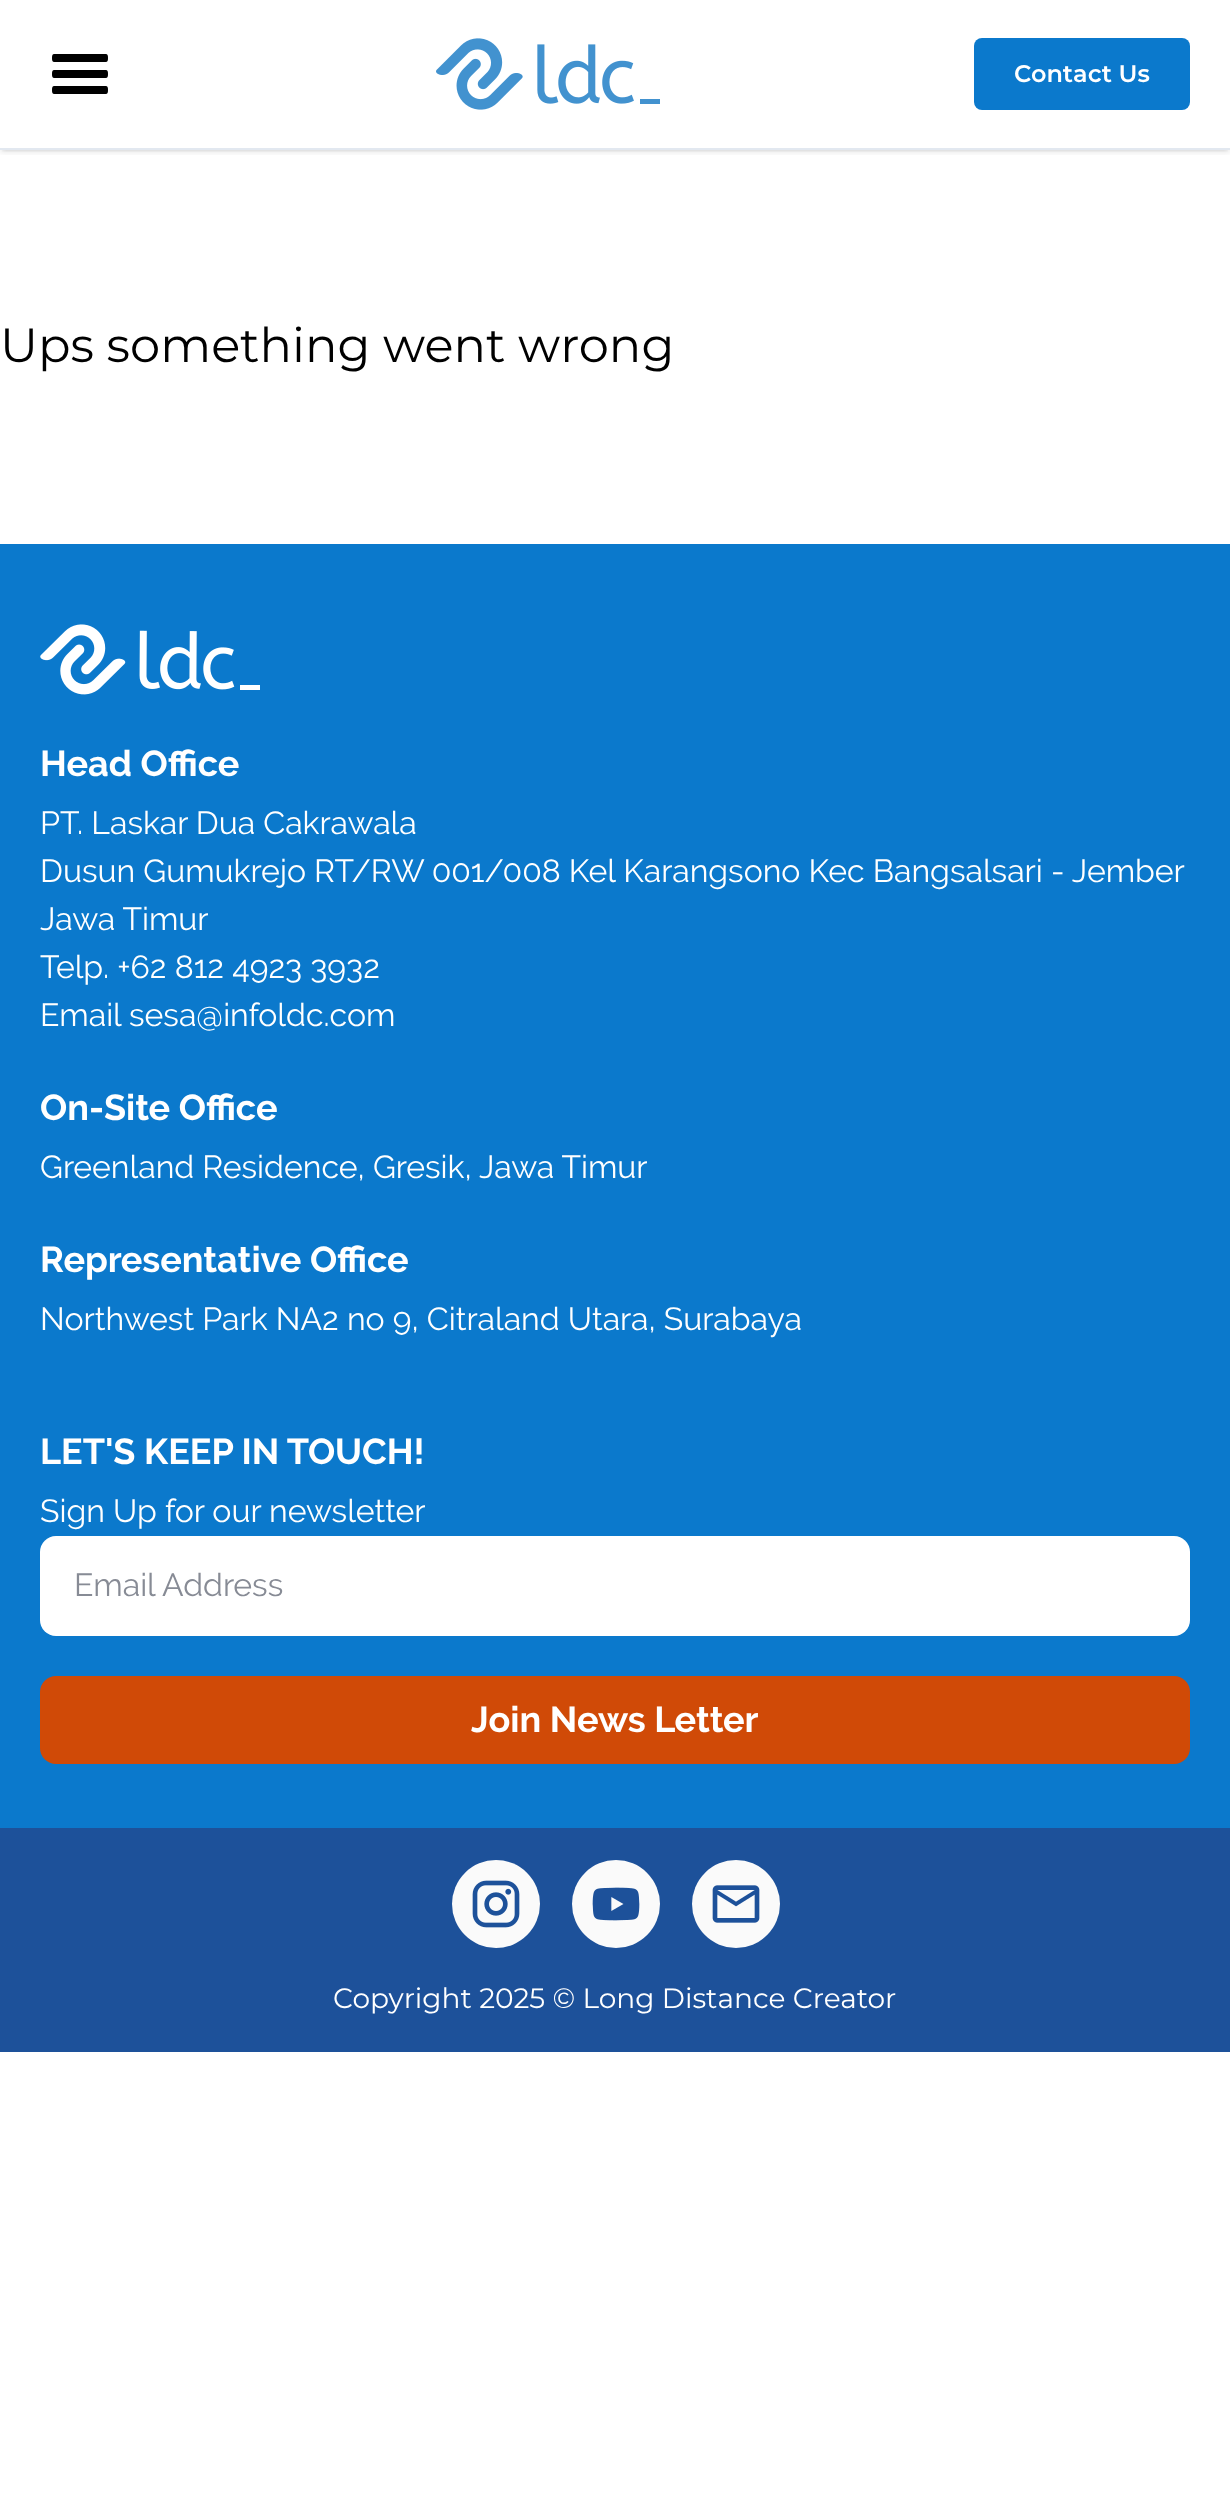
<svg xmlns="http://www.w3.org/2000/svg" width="1230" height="2502">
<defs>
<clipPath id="clip1"><rect x="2" y="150" width="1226" height="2"/></clipPath>
<clipPath id="clip2"><rect x="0" y="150" width="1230" height="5"/></clipPath>
</defs>
<rect width="100%" height="100%" fill="#fff"/>
<g clip-path="url(#clip1)">
<rect x="2" y="4" width="1226" height="146" fill="#0000001a" filter="blur(2px)"/>
</g>
<g clip-path="url(#clip2)">
<rect y="2" width="1230" height="150" fill="#0000001a" filter="blur(3px)"/>
</g>
<rect y="148" width="1230" height="2" fill="#e2e8f0"/>
<image x="52" y="54" width="56" height="40" href="media/1.png"/>
<image x="436" y="38" width="224" height="72" href="media/2.png"/>
<rect x="974" y="38" width="216" height="72" rx="8" fill="#0b79cc"/>
<text x="1014" y="82" style="font-family:Montserrat;font-size:24px;font-weight:600;fill:#fff">Contact Us</text>
<text x="0" y="362" style="font-family:Montserrat;font-size:48px;fill:#000">Ups something went wrong</text>
<rect y="544" width="1230" height="1284" fill="#0b79cc"/>
<image x="40" y="624" width="220" height="71" href="media/3.png"/>
<text x="40" y="776" style="font-family:Raleway;font-size:36px;font-weight:bold;fill:#fff">Head Office</text>
<text x="40" y="834" style="font-family:Raleway;font-size:32px;fill:#fff">PT. Laskar Dua Cakrawala</text>
<text x="40" y="882" style="font-family:Raleway;font-size:32px;fill:#fff">Dusun Gumukrejo RT/RW 001/008 Kel Karangsono Kec Bangsalsari - Jember</text>
<text x="40" y="930" style="font-family:Raleway;font-size:32px;fill:#fff">Jawa Timur</text>
<text x="40" y="978" style="font-family:Raleway;font-size:32px;fill:#fff">Telp. +62 812 4923 3932</text>
<text x="40" y="1026" style="font-family:Raleway;font-size:32px;fill:#fff">Email sesa@infoldc.com</text>
<text x="40" y="1120" style="font-family:Raleway;font-size:36px;font-weight:bold;fill:#fff">On-Site Office</text>
<text x="40" y="1178" style="font-family:Raleway;font-size:32px;fill:#fff">Greenland Residence, Gresik, Jawa Timur</text>
<text x="40" y="1272" style="font-family:Raleway;font-size:36px;font-weight:bold;fill:#fff">Representative Office</text>
<text x="40" y="1330" style="font-family:Raleway;font-size:32px;fill:#fff">Northwest Park NA2 no 9, Citraland Utara, Surabaya</text>
<text x="40" y="1464" style="font-family:Raleway;font-size:36px;font-weight:bold;fill:#fff">LET'S KEEP IN TOUCH!</text>
<text x="40" y="1522" style="font-family:Raleway;font-size:32px;fill:#fff">Sign Up for our newsletter</text>
<rect x="40" y="1536" width="1150" height="100" rx="16" fill="#fff"/>
<text x="74" y="1596" style="font-family:Raleway;font-size:32px;fill:#878b95">Email Address</text>
<rect x="40" y="1676" width="1150" height="88" rx="16" fill="#d04a07"/>
<text x="471" y="1732" style="font-family:Raleway;font-size:36px;font-weight:bold;fill:#fff">Join News Letter</text>
<rect y="1828" width="1230" height="224" fill="#1d519a"/>
<circle cx="496" cy="1904" r="44" fill="#fafafa"/>
<image x="472" y="1880" width="48" height="48" href="media/4.png"/>
<circle cx="616" cy="1904" r="44" fill="#fafafa"/>
<image x="592" y="1887" width="48" height="34" href="media/5.png"/>
<circle cx="736" cy="1904" r="44" fill="#fafafa"/>
<image x="712" y="1885" width="48" height="38" href="media/6.png"/>
<text x="333" y="2008" style="font-family:Montserrat;font-size:28px;fill:#fff">Copyright 2025 © Long Distance Creator</text>
</svg>
